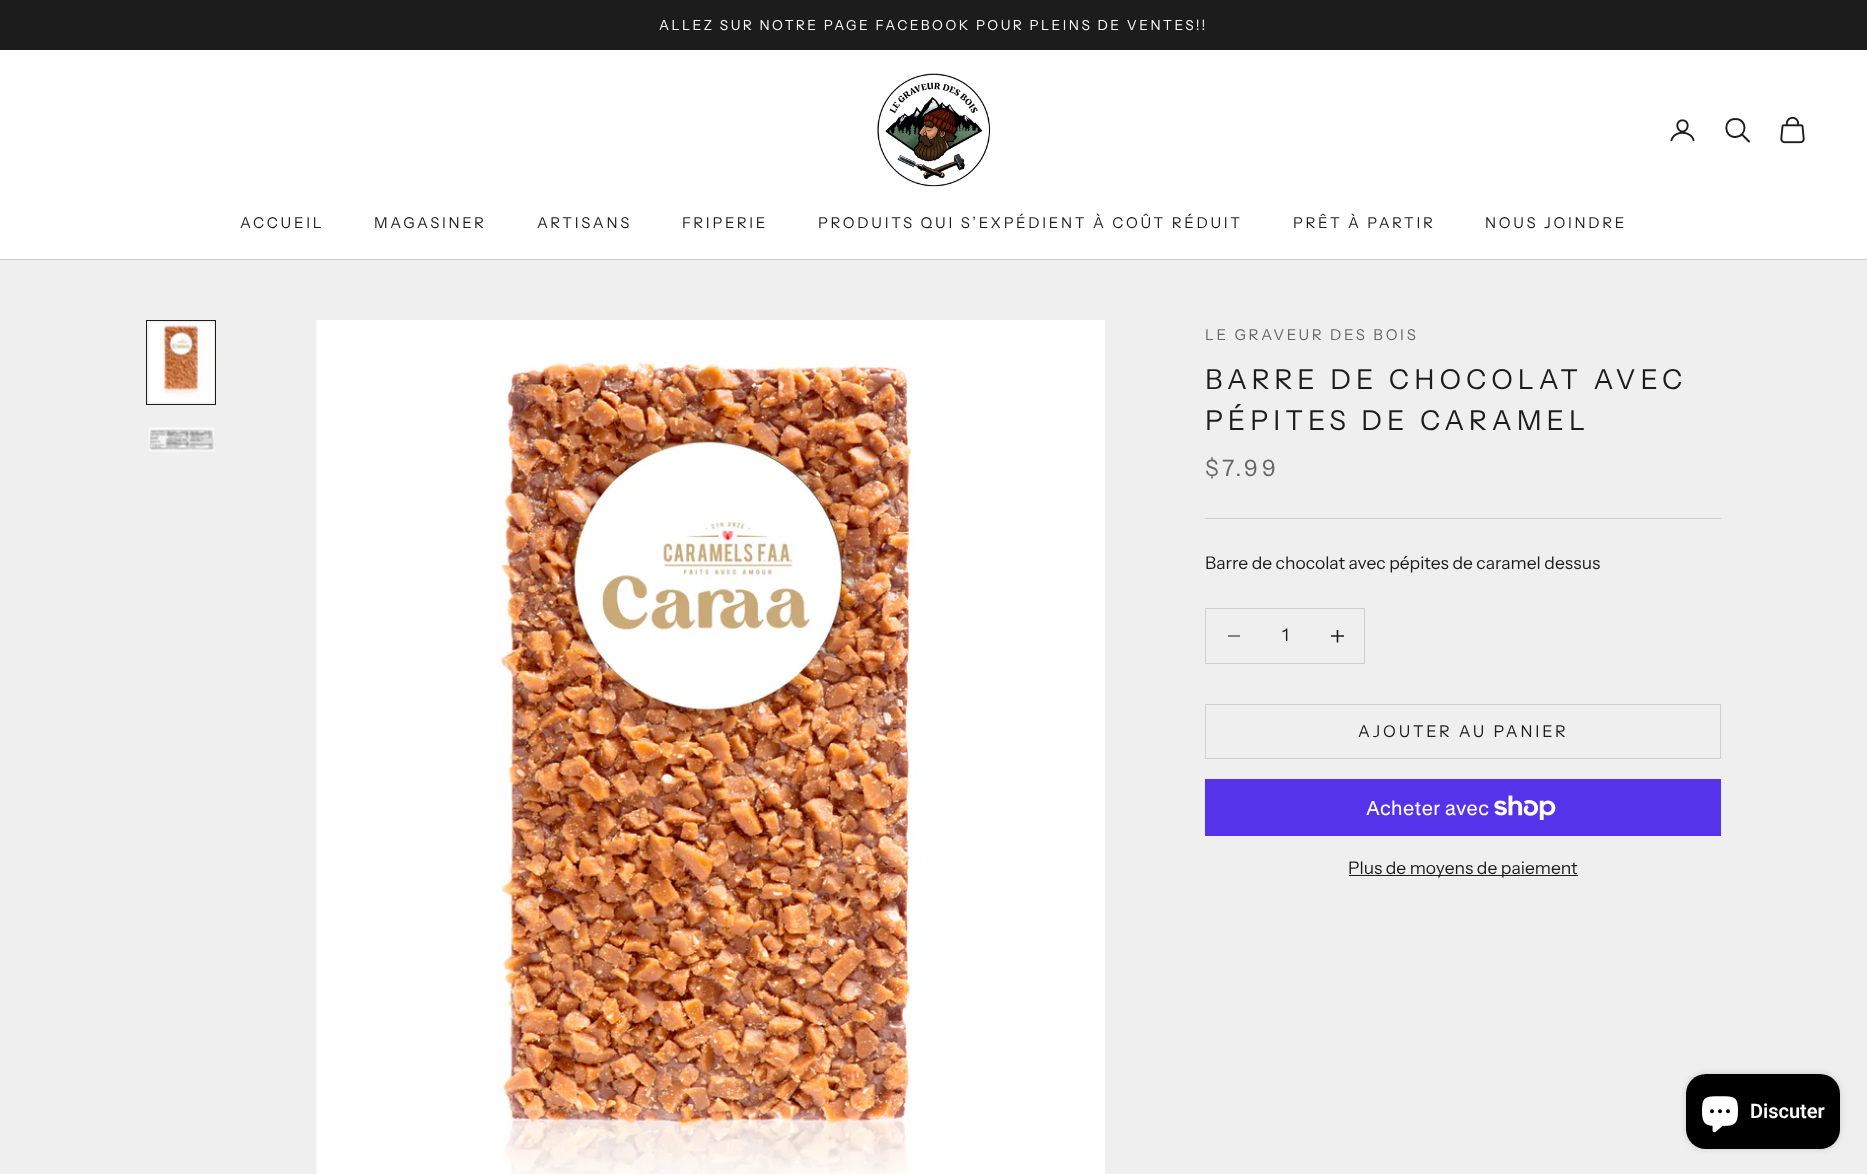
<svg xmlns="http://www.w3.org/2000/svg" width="1867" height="1174">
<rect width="100%" height="100%" fill="#efefef"/>
<rect width="1867" height="50" fill="#1c1c1c"/>
<text x="659" y="30" style="font-family:Instrument Sans;font-size:13.75px;letter-spacing:2.48px;fill:#fff">ALLEZ SUR NOTRE PAGE FACEBOOK POUR PLEINS DE VENTES!!</text>
<rect y="50" width="1867" height="209" fill="#fff"/>
<rect y="259" width="1867" height="1" fill="#cfcfcf"/>
<image x="877" y="73" width="113" height="114" href="media/1.png"/>
<image x="1670" y="119" width="25" height="22" href="media/2.png"/>
<path d="M1735.5 119c-12.5-.5-12 18.5 0 18c12-.5 12-18 0-18z" fill="none" stroke="#1c1c1c" stroke-width="1.9"/>
<path d="M1742.5 135l6.5 6.5" fill="none" stroke="#1c1c1c" stroke-width="1.9" stroke-linecap="round"/>
<image x="1780" y="116" width="25" height="28" href="media/3.png"/>
<text x="240" y="228" style="font-family:Instrument Sans;font-size:15px;letter-spacing:2.7px;fill:#1c1c1c">ACCUEIL</text>
<text x="374" y="228" style="font-family:Instrument Sans;font-size:15px;letter-spacing:2.7px;fill:#1c1c1c">MAGASINER</text>
<text x="537" y="228" style="font-family:Instrument Sans;font-size:15px;letter-spacing:2.7px;fill:#1c1c1c">ARTISANS</text>
<text x="682" y="228" style="font-family:Instrument Sans;font-size:15px;letter-spacing:2.7px;fill:#1c1c1c">FRIPERIE</text>
<text x="818" y="228" style="font-family:Instrument Sans;font-size:15px;letter-spacing:2.7px;fill:#1c1c1c">PRODUITS QUI S’EXPÉDIENT À COÛT RÉDUIT</text>
<text x="1293" y="228" style="font-family:Instrument Sans;font-size:15px;letter-spacing:2.7px;fill:#1c1c1c">PRÊT À PARTIR</text>
<text x="1485" y="228" style="font-family:Instrument Sans;font-size:15px;letter-spacing:2.7px;fill:#1c1c1c">NOUS JOINDRE</text>
<rect x="146.5" y="320.5" width="69" height="84" fill="none" stroke="#1c1c1c"/>
<image x="148" y="322" width="66" height="81" href="media/4.png"/>
<image x="148" y="427" width="66" height="25" href="media/5.png"/>
<image x="316" y="320" width="789" height="854" href="media/6.png"/>
<text x="1205" y="340" style="font-family:Instrument Sans;font-size:15px;letter-spacing:2.7px;fill:#666">LE GRAVEUR DES BOIS</text>
<text x="1205" y="389" style="font-family:Instrument Sans;font-size:27.5px;letter-spacing:4.95px;fill:#1c1c1c">BARRE DE CHOCOLAT AVEC</text>
<text x="1205" y="430" style="font-family:Instrument Sans;font-size:27.5px;letter-spacing:4.95px;fill:#1c1c1c">PÉPITES DE CARAMEL</text>
<text x="1205" y="476" style="font-family:Instrument Sans;font-size:22.5px;letter-spacing:4px;fill:#666">$7.99</text>
<rect x="1205" y="518" width="516" height="1" fill="#cfcfcf"/>
<text x="1205" y="569" style="font-family:Instrument Sans;font-size:17.5px;fill:#1c1c1c">Barre de chocolat avec pépites de caramel dessus</text>
<rect x="1205.5" y="608.5" width="159" height="55" fill="none" stroke="#cfcfcf"/>
<rect x="1228" y="635" width="12" height="2" fill="#818181"/>
<text x="1282" y="641" style="font-family:Instrument Sans;font-size:17.5px;fill:#1c1c1c">1</text>
<path d="M1337.5 630v12.5m-6.5-6.5h13" fill="none" stroke="#1c1c1c" stroke-width="1.6"/>
<rect x="1205.5" y="704.5" width="515" height="54" fill="none" stroke="#cfcfcf"/>
<text x="1358" y="737" style="font-family:Instrument Sans;font-size:16.25px;letter-spacing:2.9px;fill:#1c1c1c">AJOUTER AU PANIER</text>
<rect x="1205" y="779" width="516" height="57" fill="#5433eb"/>
<text x="1366" y="815" style="font-family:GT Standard;font-size:20px;fill:#fff">Acheter avec</text>
<image x="1494" y="795" width="62" height="25" href="media/7.png"/>
<rect x="1349" y="875" width="229" height="1" fill="#1c1c1c"/>
<text x="1348" y="874" style="font-family:Instrument Sans;font-size:17.5px;fill:#1c1c1c">Plus de moyens de paiement</text>
<rect x="1686" y="1074" width="154" height="75" rx="20" fill="#00000026" filter="blur(3px)"/>
<rect x="1686" y="1074" width="154" height="75" rx="20" fill="#000"/>
<image x="1702" y="1096" width="36" height="37" href="media/8.png"/>
<text x="1750" y="1118" style="font-family:Roboto;font-size:20px;font-weight:600;fill:#fff">Discuter</text>
</svg>
